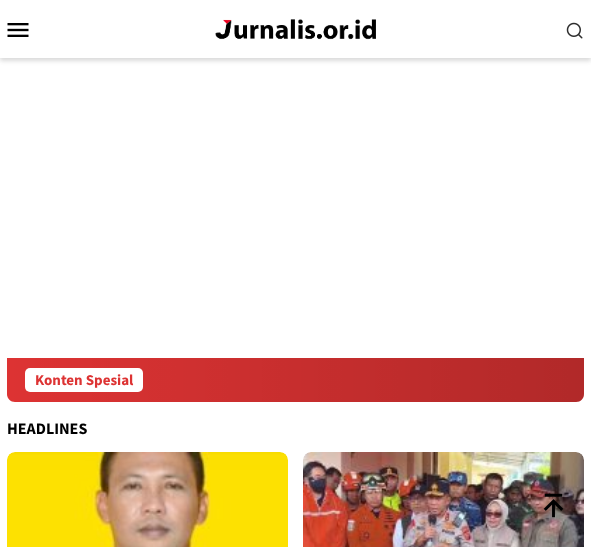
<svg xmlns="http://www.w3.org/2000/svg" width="591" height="547">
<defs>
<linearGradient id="g1" gradientUnits="userSpaceOnUse" x1="7" y1="380" x2="584" y2="380"><stop offset="0" stop-color="#000" stop-opacity="0"/><stop offset="1" stop-color="#000" stop-opacity="0.2"/></linearGradient>
</defs>
<rect width="100%" height="100%" fill="#fff"/>
<rect y="3" width="591" height="58" fill="#3434342e" filter="blur(2px)"/>
<rect width="591" height="58" fill="#fff"/>
<image x="7" y="23" width="22" height="14" href="media/1.png"/>
<image x="215" y="19" width="161" height="21" href="media/2.png"/>
<image x="566" y="22" width="17" height="17" href="media/3.png"/>
<path d="M7 358h577v36c0 4.5-3.5 8-8 8h-561c-4.5 0-8-3.5-8-8z" fill="#d33"/>
<path d="M7 358h577v36c0 4.5-3.5 8-8 8h-561c-4.5 0-8-3.5-8-8z" fill="url(#g1)"/>
<rect x="25" y="368" width="118" height="24" rx="5" fill="#fff"/>
<text x="35" y="385" style="font-family:Source Sans Pro;font-size:15px;font-weight:bold;fill:#d33">Konten Spesial</text>
<text x="7" y="434" style="font-family:Source Sans Pro;font-size:16px;font-weight:bold;fill:#000">HEADLINES</text>
<image x="7" y="452" width="281" height="95" href="media/4.png"/>
<image x="303" y="452" width="281" height="95" href="media/5.png"/>
<image x="543" y="493" width="21" height="25" href="media/6.png"/>
</svg>
